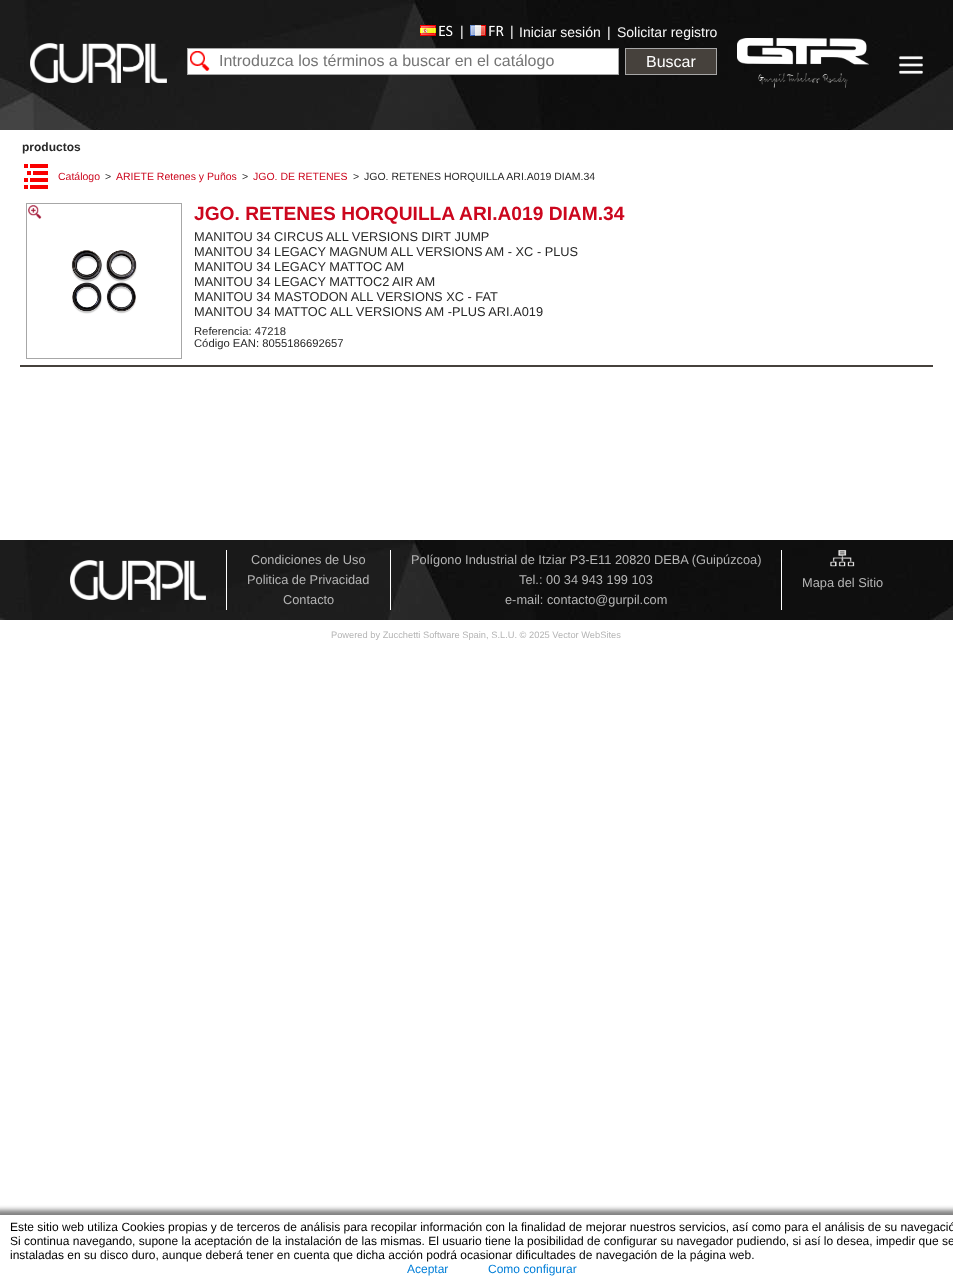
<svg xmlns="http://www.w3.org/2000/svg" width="953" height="1281">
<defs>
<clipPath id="clip1"><rect x="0" y="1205" width="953" height="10"/></clipPath>
</defs>
<rect width="100%" height="100%" fill="#fff"/>
<image x="0" y="0" width="953" height="130" href="media/1.png"/>
<image x="30" y="43" width="137" height="40" href="media/2.png"/>
<image x="420" y="25" width="33" height="11" href="media/3.png"/>
<text x="460" y="36" style="font-family:Liberation Sans;font-size:14px;fill:#f7f7f7">|</text>
<image x="470" y="25" width="34" height="11" href="media/4.png"/>
<text x="510" y="36" style="font-family:Liberation Sans;font-size:14px;fill:#f7f7f7">|</text>
<text x="519" y="37" style="font-family:Liberation Sans;font-size:14px;fill:#f7f7f7">Iniciar sesión</text>
<text x="607" y="37" style="font-family:Liberation Sans;font-size:14px;fill:#f7f7f7">|</text>
<text x="617" y="37" style="font-family:Liberation Sans;font-size:14px;fill:#f7f7f7">Solicitar registro</text>
<rect x="188" y="49" width="430" height="25" fill="#fff"/>
<image x="190" y="51" width="20" height="20" href="media/5.png"/>
<rect x="187.5" y="48.5" width="431" height="26" fill="none" stroke="#a7a7a7"/>
<text x="219" y="66" style="font-family:Liberation Sans;font-size:16px;fill:#757575">Introduzca los términos a buscar en el catálogo</text>
<rect x="625.5" y="48.5" width="91" height="26" fill="#46413c" stroke="#a7a7a7"/>
<text x="646" y="67" style="font-family:Liberation Sans;font-size:16px;fill:#fff">Buscar</text>
<image x="737" y="38" width="132" height="50" href="media/6.png"/>
<image x="899" y="56" width="24" height="18" href="media/7.png"/>
<text x="22" y="151" style="font-family:Liberation Sans;font-size:12px;font-weight:bold;fill:#282828">productos</text>
<image x="24" y="164" width="24" height="25" href="media/8.png"/>
<text x="58" y="180" style="font-family:Liberation Sans;font-size:10.5px;fill:#cc071e">Catálogo</text>
<text x="105" y="180" style="font-family:Liberation Sans;font-size:10.5px;fill:#282828">&gt;</text>
<text x="116" y="180" style="font-family:Liberation Sans;font-size:10.5px;fill:#cc071e">ARIETE Retenes y Puños</text>
<text x="242" y="180" style="font-family:Liberation Sans;font-size:10.5px;fill:#282828">&gt;</text>
<text x="253" y="180" style="font-family:Liberation Sans;font-size:10.5px;fill:#cc071e">JGO. DE RETENES</text>
<text x="353" y="180" style="font-family:Liberation Sans;font-size:10.5px;fill:#282828">&gt;</text>
<text x="364" y="180" style="font-family:Liberation Sans;font-size:10.5px;fill:#282828">JGO. RETENES HORQUILLA ARI.A019 DIAM.34</text>
<rect x="20" y="365" width="913" height="2" fill="#46413c"/>
<rect x="26.5" y="203.5" width="155" height="155" fill="none" stroke="#a7a7a7"/>
<image x="28" y="205" width="14" height="14" href="media/9.png"/>
<image x="71" y="250" width="66" height="64" href="media/10.png"/>
<text x="194" y="220" style="font-family:Liberation Sans;font-size:19.2px;font-weight:bold;fill:#cc071e">JGO. RETENES HORQUILLA ARI.A019 DIAM.34</text>
<text x="194" y="241" style="font-family:Liberation Sans;font-size:12.8px;fill:#282828">MANITOU 34 CIRCUS</text>
<text x="326" y="241" style="font-family:Liberation Sans;font-size:12.8px;fill:#282828">ALL VERSIONS DIRT JUMP</text>
<text x="194" y="256" style="font-family:Liberation Sans;font-size:12.8px;fill:#282828">MANITOU 34 LEGACY MAGNUM ALL VERSIONS</text>
<text x="485" y="256" style="font-family:Liberation Sans;font-size:12.8px;fill:#282828">AM - XC - PLUS</text>
<text x="194" y="271" style="font-family:Liberation Sans;font-size:12.8px;fill:#282828">MANITOU 34 LEGACY MATTOC</text>
<text x="385" y="271" style="font-family:Liberation Sans;font-size:12.8px;fill:#282828">AM</text>
<text x="194" y="286" style="font-family:Liberation Sans;font-size:12.8px;fill:#282828">MANITOU 34 LEGACY MATTOC2</text>
<text x="392" y="286" style="font-family:Liberation Sans;font-size:12.8px;fill:#282828">AIR</text>
<text x="416" y="286" style="font-family:Liberation Sans;font-size:12.8px;fill:#282828">AM</text>
<text x="194" y="301" style="font-family:Liberation Sans;font-size:12.8px;fill:#282828">MANITOU 34 MASTODON ALL VERSIONS XC - FAT</text>
<text x="194" y="316" style="font-family:Liberation Sans;font-size:12.8px;fill:#282828">MANITOU 34 MATTOC</text>
<text x="330" y="316" style="font-family:Liberation Sans;font-size:12.8px;fill:#282828">ALL VERSIONS</text>
<text x="425" y="316" style="font-family:Liberation Sans;font-size:12.8px;fill:#282828">AM -PLUS ARI.A019</text>
<text x="194" y="335" style="font-family:Liberation Sans;font-size:11.25px;fill:#282828">Referencia: 47218</text>
<text x="194" y="347" style="font-family:Liberation Sans;font-size:11.25px;fill:#282828">Código EAN: 8055186692657</text>
<image x="0" y="540" width="953" height="80" href="media/11.png"/>
<rect x="226" y="550" width="1" height="60" fill="#fff"/>
<image x="70" y="560" width="136" height="40" href="media/12.png"/>
<rect x="390" y="550" width="1" height="60" fill="#fff"/>
<text x="251" y="564" style="font-family:Liberation Sans;font-size:12.8px;fill:#b5b5b5">Condiciones de Uso</text>
<text x="247" y="584" style="font-family:Liberation Sans;font-size:12.8px;fill:#b5b5b5">Politica de Privacidad</text>
<text x="283" y="604" style="font-family:Liberation Sans;font-size:12.8px;fill:#b5b5b5">Contacto</text>
<rect x="781" y="550" width="1" height="60" fill="#fff"/>
<text x="411" y="564" style="font-family:Liberation Sans;font-size:12.8px;fill:#b5b5b5">Polígono Industrial de Itziar P3-E11 20820 DEBA (Guipúzcoa)</text>
<text x="519" y="584" style="font-family:Liberation Sans;font-size:12.8px;fill:#b5b5b5">Tel.: 00 34 943 199 103</text>
<text x="505" y="604" style="font-family:Liberation Sans;font-size:12.8px;fill:#b5b5b5">e-mail: contacto@gurpil.com</text>
<image x="830" y="550" width="25" height="17" href="media/13.png"/>
<text x="802" y="587" style="font-family:Liberation Sans;font-size:12.8px;fill:#b5b5b5">Mapa del Sitio</text>
<text x="331" y="638" style="font-family:Liberation Sans;font-size:9.3px;fill:#b5b5b5">Powered by Zucchetti Software Spain, S.L.U. © 2025 Vector WebSites</text>
<g clip-path="url(#clip1)">
<rect x="-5" y="1210" width="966" height="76" fill="#808080" filter="blur(2.5px)"/>
</g>
<text x="10" y="1231" style="font-family:Liberation Sans;font-size:12px;fill:#000">Este sitio web utiliza Cookies propias y de terceros de análisis para recopilar información con la finalidad de mejorar nuestros servicios, así como para el análisis de su navegació</text>
<text x="10" y="1245" style="font-family:Liberation Sans;font-size:12px;fill:#000">Si continua navegando, supone la aceptación de la instalación de las mismas. El usuario tiene la posibilidad de configurar su navegador pudiendo, si así lo desea, impedir que se</text>
<text x="10" y="1259" style="font-family:Liberation Sans;font-size:12px;fill:#000">instaladas en su disco duro, aunque deberá tener en cuenta que dicha acción podrá ocasionar dificultades de navegación de la página web.</text>
<text x="407" y="1273" style="font-family:Liberation Sans;font-size:12px;fill:#007ed8">Aceptar</text>
<text x="488" y="1273" style="font-family:Liberation Sans;font-size:12px;fill:#007ed8">Como configurar</text>
</svg>
